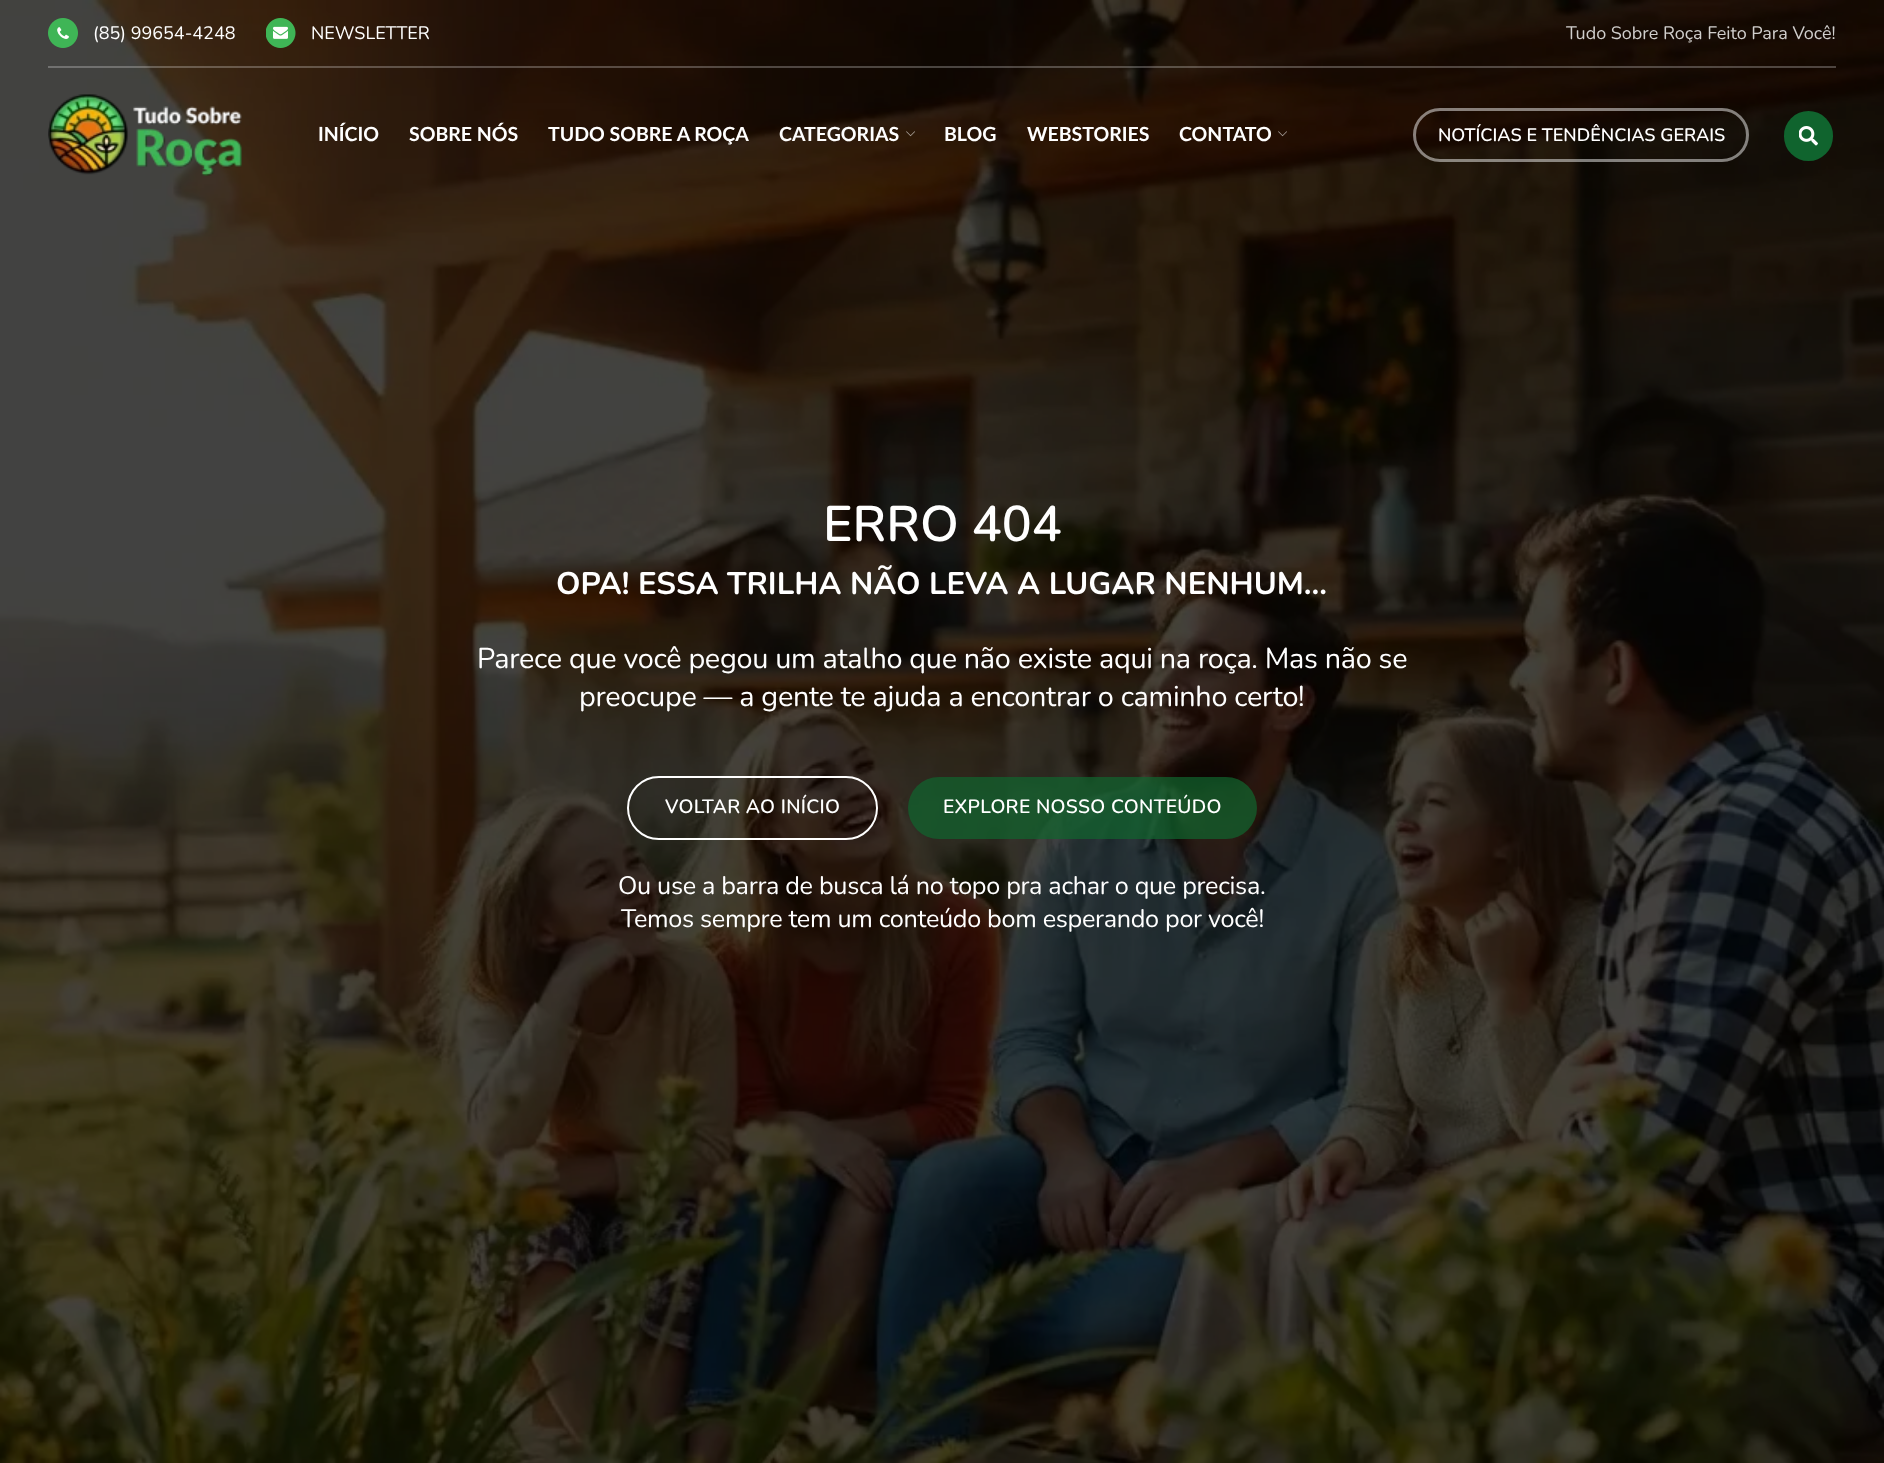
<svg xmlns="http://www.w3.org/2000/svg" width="1884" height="1463">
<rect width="100%" height="100%" fill="#fff"/>
<image x="0" y="0" width="1884" height="1463" href="media/7.png"/>
<rect x="48" y="66" width="1788" height="2" fill="#ffffff40"/>
<image x="48" y="18" width="30" height="30" href="media/1.png"/>
<text x="93" y="39" style="font-family:Nunito;font-size:18px;fill:#fff">(85) 99654-4248</text>
<image x="266" y="18" width="30" height="30" href="media/2.png"/>
<text x="311" y="39" style="font-family:Nunito;font-size:18px;fill:#fff">NEWSLETTER</text>
<text x="1566" y="39" style="font-family:Nunito;font-size:18px;fill:#d0cecc">Tudo Sobre Roça Feito Para Você!</text>
<image x="48" y="94" width="194" height="82" href="media/3.png"/>
<text x="318" y="141" style="font-family:Lato;font-size:19.5px;font-weight:bold;fill:#fff">INÍCIO</text>
<text x="409" y="141" style="font-family:Lato;font-size:19.5px;font-weight:bold;fill:#fff">SOBRE NÓS</text>
<text x="548" y="141" style="font-family:Lato;font-size:19.5px;font-weight:bold;fill:#fff">TUDO SOBRE A ROÇA</text>
<text x="779" y="141" style="font-family:Lato;font-size:19.5px;font-weight:bold;fill:#fff">CATEGORIAS</text>
<image x="906" y="131" width="9" height="6" href="media/4.png"/>
<text x="944" y="141" style="font-family:Lato;font-size:19.5px;font-weight:bold;fill:#fff">BLOG</text>
<text x="1027" y="141" style="font-family:Lato;font-size:19.5px;font-weight:bold;fill:#fff">WEBSTORIES</text>
<text x="1179" y="141" style="font-family:Lato;font-size:19.5px;font-weight:bold;fill:#fff">CONTATO</text>
<image x="1278" y="131" width="9" height="6" href="media/5.png"/>
<rect x="1414.5" y="109.5" width="333" height="51" rx="25.5" fill="none" stroke="#ffffff7a" stroke-width="3"/>
<text x="1438" y="141" style="font-family:Nunito;font-size:18px;font-weight:600;fill:#fff">NOTÍCIAS E TENDÊNCIAS GERAIS</text>
<rect x="1784" y="111" width="49" height="50" rx="24.5" fill="#10642e"/>
<image x="1799" y="126" width="19" height="20" href="media/6.png"/>
<text x="823" y="541" style="font-family:Nunito;font-size:50px;font-weight:600;fill:#fff">ERRO 404</text>
<text x="556" y="594" style="font-family:Nunito;font-size:31.2px;font-weight:bold;fill:#fff">OPA! ESSA TRILHA NÃO LEVA A LUGAR NENHUM...</text>
<text x="477" y="668" style="font-family:Nunito;font-size:28.8px;letter-spacing:-0.3px;fill:#fff">Parece que você pegou um atalho que não existe aqui na roça. Mas não se</text>
<text x="579" y="706" style="font-family:Nunito;font-size:28.8px;letter-spacing:-0.3px;fill:#fff">preocupe — a gente te ajuda a encontrar o caminho certo!</text>
<rect x="628" y="777" width="249" height="62" rx="31" fill="none" stroke="#fff" stroke-width="2"/>
<text x="665" y="813" style="font-family:Nunito;font-size:19.25px;font-weight:600;letter-spacing:0.3px;fill:#fff">VOLTAR AO INÍCIO</text>
<rect x="908" y="777" width="349" height="62" rx="31" fill="#10642eb8"/>
<text x="943" y="813" style="font-family:Nunito;font-size:19.25px;font-weight:600;letter-spacing:0.3px;fill:#fff">EXPLORE NOSSO CONTEÚDO</text>
<text x="618" y="894" style="font-family:Nunito;font-size:25.2px;letter-spacing:-0.3px;fill:#fff">Ou use a barra de busca lá no topo pra achar o que precisa.</text>
<text x="621" y="927" style="font-family:Nunito;font-size:25.2px;letter-spacing:-0.3px;fill:#fff">Temos sempre tem um conteúdo bom esperando por você!</text>
</svg>
